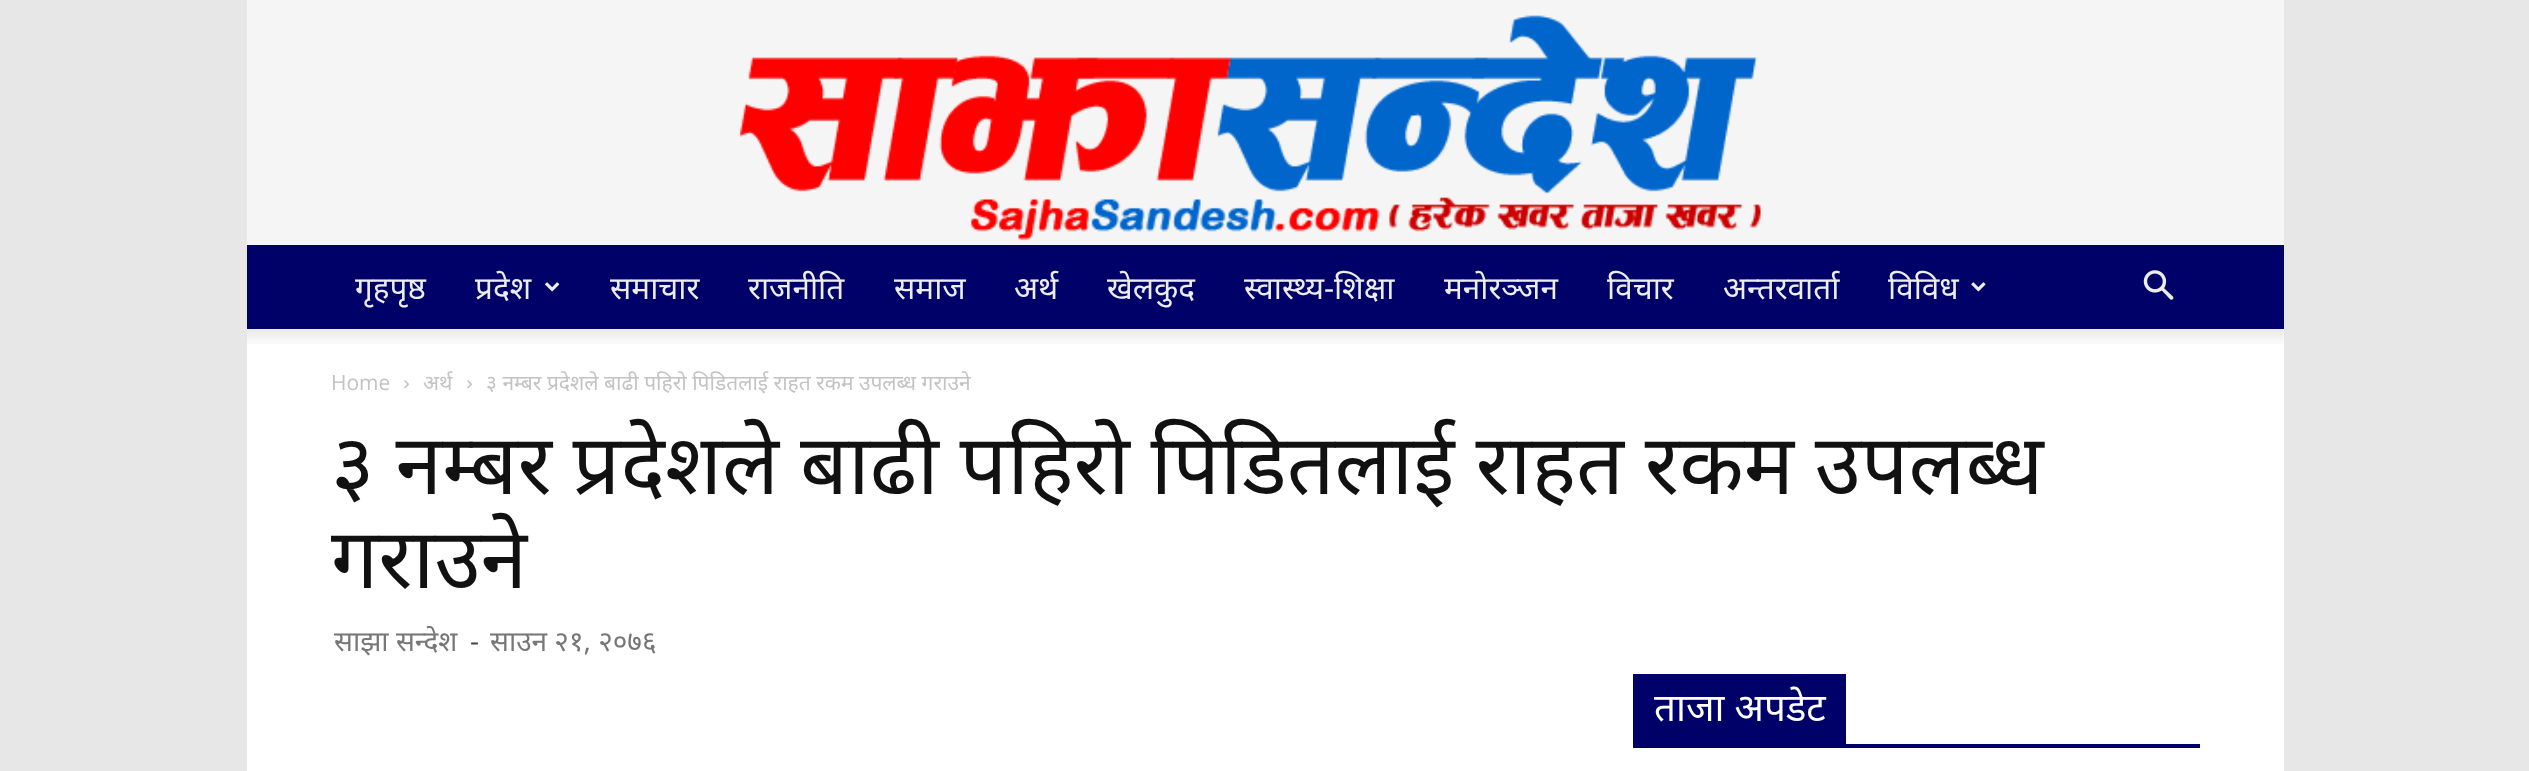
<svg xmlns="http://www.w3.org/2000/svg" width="2529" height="771">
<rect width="100%" height="100%" fill="#e7e7e7"/>
<rect x="247" width="2037" height="245" fill="#f5f5f5"/>
<image x="740" y="15" width="1021" height="226" href="media/1.png"/>
<rect x="247" y="245" width="2037" height="84" fill="#000069"/>
<text x="355" y="299" style="font-family:Noto Sans;font-size:31.5px;fill:#ededed">गृहपृष्ठ</text>
<text x="475" y="299" style="font-family:Noto Sans;font-size:31.5px;fill:#ededed">प्रदेश</text>
<image x="545" y="282" width="15" height="10" href="media/2.png"/>
<text x="610" y="299" style="font-family:Noto Sans;font-size:31.5px;fill:#ededed">समाचार</text>
<text x="748" y="299" style="font-family:Noto Sans;font-size:31.5px;fill:#ededed">राजनीति</text>
<text x="894" y="299" style="font-family:Noto Sans;font-size:31.5px;fill:#ededed">समाज</text>
<text x="1014" y="299" style="font-family:Noto Sans;font-size:31.5px;fill:#ededed">अर्थ</text>
<text x="1107" y="299" style="font-family:Noto Sans;font-size:31.5px;fill:#ededed">खेलकुद</text>
<text x="1244" y="299" style="font-family:Noto Sans;font-size:31.5px;fill:#ededed">स्वास्थ्य-शिक्षा</text>
<text x="1444" y="299" style="font-family:Noto Sans;font-size:31.5px;fill:#ededed">मनोरञ्जन</text>
<text x="1607" y="299" style="font-family:Noto Sans;font-size:31.5px;fill:#ededed">विचार</text>
<text x="1723" y="299" style="font-family:Noto Sans;font-size:31.5px;fill:#ededed">अन्तरवार्ता</text>
<text x="1888" y="299" style="font-family:Noto Sans;font-size:31.5px;fill:#ededed">विविध</text>
<image x="1971" y="282" width="15" height="10" href="media/3.png"/>
<image x="2143" y="270" width="31" height="30" href="media/4.png"/>
<rect x="247" y="329" width="2037" height="442" fill="#fff"/>
<image x="247" y="329" width="2037" height="15" href="media/5.png"/>
<text x="331" y="390" style="font-family:Open Sans;font-size:21px;fill:#c3c3c3">Home</text>
<image x="404" y="380" width="5" height="9" href="media/6.png"/>
<text x="423" y="390" style="font-family:Noto Sans;font-size:21px;fill:#c3c3c3">अर्थ</text>
<image x="467" y="380" width="5" height="9" href="media/6.png"/>
<text x="486" y="390" style="font-family:Noto Sans;font-size:21px;fill:#c3c3c3">३ नम्बर प्रदेशले बाढी पहिरो पिडितलाई राहत रकम उपलब्ध गराउने</text>
<text x="331" y="494" word-spacing="-1" style="font-family:Noto Sans;font-size:84px;fill:#111">३ नम्बर प्रदेशले बाढी पहिरो पिडितलाई राहत रकम उपलब्ध</text>
<text x="331" y="588" style="font-family:Noto Sans;font-size:84px;fill:#111">गराउने</text>
<text x="334" y="651" style="font-family:Noto Sans;font-size:28px;fill:#777">साझा सन्देश</text>
<text x="470" y="651" style="font-family:Open Sans;font-size:28px;fill:#444">-</text>
<text x="490" y="651" style="font-family:Noto Sans;font-size:28px;fill:#777">साउन २१, २०७६</text>
<rect x="1633" y="744" width="567" height="4" fill="#000069"/>
<rect x="1633" y="674" width="213" height="70" fill="#000069"/>
<text x="1654" y="721" style="font-family:Noto Sans;font-size:38.5px;fill:#fff">ताजा अपडेट</text>
</svg>
